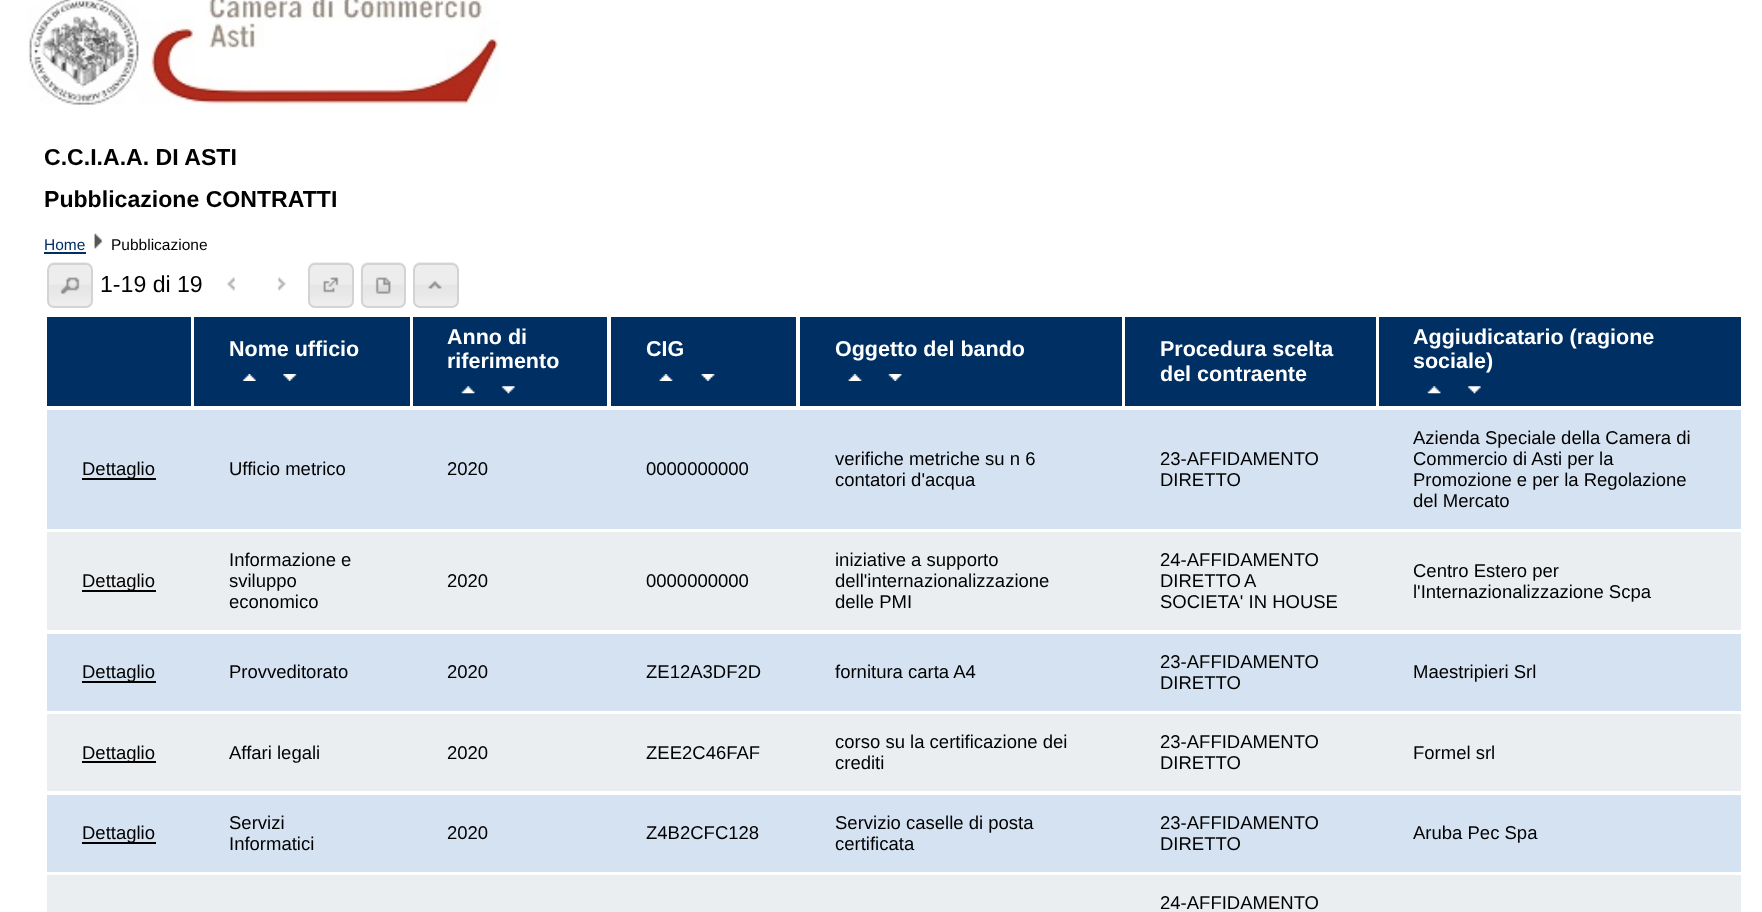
<svg xmlns="http://www.w3.org/2000/svg" width="1762" height="912">
<rect width="100%" height="100%" fill="#fff"/>
<image x="28" y="0" width="471" height="105" href="media/1.png"/>
<text x="44" y="165" style="font-family:Liberation Sans;font-size:23.1px;font-weight:bold;fill:#000">C.C.I.A.A. DI ASTI</text>
<text x="44" y="207" style="font-family:Liberation Sans;font-size:23.1px;font-weight:bold;fill:#000">Pubblicazione CONTRATTI</text>
<text x="44" y="250" style="font-family:Liberation Sans;font-size:15.5px;fill:#003063">Home</text>
<rect x="44" y="252" width="42" height="2" fill="#003063"/>
<image x="94" y="233" width="8" height="16" href="media/2.png"/>
<text x="111" y="250" style="font-family:Liberation Sans;font-size:15.5px;fill:#000">Pubblicazione</text>
<image x="48" y="262" width="44" height="45" href="media/3.png"/>
<rect x="48" y="264" width="44" height="43" rx="6" fill="none" stroke="#d3d3d3" stroke-width="2"/>
<image x="60" y="277" width="20" height="17" href="media/4.png"/>
<text x="100" y="292" style="font-family:Liberation Sans;font-size:23.1px;fill:#000">1-19 di 19</text>
<image x="227" y="277" width="8" height="14" href="media/5.png"/>
<image x="278" y="277" width="8" height="14" href="media/6.png"/>
<image x="308" y="262" width="45" height="45" href="media/7.png"/>
<rect x="309" y="264" width="44" height="43" rx="6" fill="none" stroke="#d3d3d3" stroke-width="2"/>
<image x="323" y="277" width="16" height="16" href="media/8.png"/>
<image x="360" y="262" width="46" height="45" href="media/9.png"/>
<rect x="362" y="264" width="43" height="43" rx="6" fill="none" stroke="#d3d3d3" stroke-width="2"/>
<image x="375" y="277" width="16" height="17" href="media/10.png"/>
<image x="413" y="262" width="45" height="45" href="media/7.png"/>
<rect x="414" y="264" width="44" height="43" rx="6" fill="none" stroke="#d3d3d3" stroke-width="2"/>
<image x="428" y="280" width="14" height="9" href="media/11.png"/>
<rect x="47" y="317" width="144" height="89" fill="#003063"/>
<rect x="194" y="317" width="216" height="89" fill="#003063"/>
<text x="229" y="356" style="font-family:Liberation Sans;font-size:21.5px;font-weight:bold;fill:#fff">Nome ufficio</text>
<image x="242" y="374" width="14" height="7" href="media/12.png"/>
<image x="283" y="374" width="14" height="7" href="media/13.png"/>
<rect x="413" y="317" width="194" height="89" fill="#003063"/>
<text x="447" y="344" style="font-family:Liberation Sans;font-size:21.5px;font-weight:bold;fill:#fff">Anno di</text>
<text x="447" y="368" style="font-family:Liberation Sans;font-size:21.5px;font-weight:bold;fill:#fff">riferimento</text>
<image x="461" y="386" width="14" height="8" href="media/14.png"/>
<image x="501" y="386" width="14" height="8" href="media/15.png"/>
<rect x="611" y="317" width="185" height="89" fill="#003063"/>
<text x="646" y="356" style="font-family:Liberation Sans;font-size:21.5px;font-weight:bold;fill:#fff">CIG</text>
<image x="659" y="374" width="14" height="7" href="media/16.png"/>
<image x="701" y="374" width="14" height="7" href="media/17.png"/>
<rect x="800" y="317" width="322" height="89" fill="#003063"/>
<text x="835" y="356" style="font-family:Liberation Sans;font-size:21.5px;font-weight:bold;fill:#fff">Oggetto del bando</text>
<image x="848" y="374" width="14" height="7" href="media/18.png"/>
<image x="888" y="374" width="14" height="7" href="media/19.png"/>
<rect x="1125" y="317" width="251" height="89" fill="#003063"/>
<text x="1160" y="356" style="font-family:Liberation Sans;font-size:21.5px;font-weight:bold;fill:#fff">Procedura scelta</text>
<text x="1160" y="381" style="font-family:Liberation Sans;font-size:21.5px;font-weight:bold;fill:#fff">del contraente</text>
<rect x="1379" y="317" width="362" height="89" fill="#003063"/>
<text x="1413" y="344" style="font-family:Liberation Sans;font-size:21.5px;font-weight:bold;fill:#fff">Aggiudicatario (ragione</text>
<text x="1413" y="368" style="font-family:Liberation Sans;font-size:21.5px;font-weight:bold;fill:#fff">sociale)</text>
<image x="1427" y="386" width="14" height="8" href="media/14.png"/>
<image x="1467" y="386" width="14" height="8" href="media/20.png"/>
<rect x="47" y="410" width="1694" height="119" fill="#d4e2f1"/>
<rect x="82" y="478" width="74" height="2" fill="#000"/>
<text x="82" y="475" style="font-family:Liberation Sans;font-size:18.5px;fill:#000">Dettaglio</text>
<text x="229" y="475" style="font-family:Liberation Sans;font-size:18.5px;fill:#000">Ufficio metrico</text>
<text x="447" y="475" style="font-family:Liberation Sans;font-size:18.5px;fill:#000">2020</text>
<text x="646" y="475" style="font-family:Liberation Sans;font-size:18.5px;fill:#000">0000000000</text>
<text x="835" y="465" style="font-family:Liberation Sans;font-size:18.5px;fill:#000">verifiche metriche su n 6</text>
<text x="835" y="486" style="font-family:Liberation Sans;font-size:18.5px;fill:#000">contatori d'acqua</text>
<text x="1160" y="465" style="font-family:Liberation Sans;font-size:18.5px;fill:#000">23-AFFIDAMENTO</text>
<text x="1160" y="486" style="font-family:Liberation Sans;font-size:18.5px;fill:#000">DIRETTO</text>
<text x="1413" y="444" style="font-family:Liberation Sans;font-size:18.5px;fill:#000">Azienda Speciale della Camera di</text>
<text x="1413" y="465" style="font-family:Liberation Sans;font-size:18.5px;fill:#000">Commercio di Asti per la</text>
<text x="1413" y="486" style="font-family:Liberation Sans;font-size:18.5px;fill:#000">Promozione e per la Regolazione</text>
<text x="1413" y="507" style="font-family:Liberation Sans;font-size:18.5px;fill:#000">del Mercato</text>
<rect x="47" y="532" width="1694" height="98" fill="#ebeef1"/>
<rect x="82" y="590" width="74" height="2" fill="#000"/>
<text x="82" y="587" style="font-family:Liberation Sans;font-size:18.5px;fill:#000">Dettaglio</text>
<text x="229" y="566" style="font-family:Liberation Sans;font-size:18.5px;fill:#000">Informazione e</text>
<text x="229" y="587" style="font-family:Liberation Sans;font-size:18.5px;fill:#000">sviluppo</text>
<text x="229" y="608" style="font-family:Liberation Sans;font-size:18.5px;fill:#000">economico</text>
<text x="447" y="587" style="font-family:Liberation Sans;font-size:18.5px;fill:#000">2020</text>
<text x="646" y="587" style="font-family:Liberation Sans;font-size:18.5px;fill:#000">0000000000</text>
<text x="835" y="566" style="font-family:Liberation Sans;font-size:18.5px;fill:#000">iniziative a supporto</text>
<text x="835" y="587" style="font-family:Liberation Sans;font-size:18.5px;fill:#000">dell'internazionalizzazione</text>
<text x="835" y="608" style="font-family:Liberation Sans;font-size:18.5px;fill:#000">delle PMI</text>
<text x="1160" y="566" style="font-family:Liberation Sans;font-size:18.5px;fill:#000">24-AFFIDAMENTO</text>
<text x="1160" y="587" word-spacing="-1" style="font-family:Liberation Sans;font-size:18.5px;fill:#000">DIRETTO A</text>
<text x="1160" y="608" style="font-family:Liberation Sans;font-size:18.5px;fill:#000">SOCIETA' IN HOUSE</text>
<text x="1413" y="577" style="font-family:Liberation Sans;font-size:18.5px;fill:#000">Centro Estero per</text>
<text x="1413" y="598" style="font-family:Liberation Sans;font-size:18.5px;fill:#000">l'Internazionalizzazione Scpa</text>
<rect x="47" y="634" width="1694" height="77" fill="#d4e2f1"/>
<rect x="82" y="681" width="74" height="2" fill="#000"/>
<text x="82" y="678" style="font-family:Liberation Sans;font-size:18.5px;fill:#000">Dettaglio</text>
<text x="229" y="678" style="font-family:Liberation Sans;font-size:18.5px;fill:#000">Provveditorato</text>
<text x="447" y="678" style="font-family:Liberation Sans;font-size:18.5px;fill:#000">2020</text>
<text x="646" y="678" style="font-family:Liberation Sans;font-size:18.5px;fill:#000">ZE12A3DF2D</text>
<text x="835" y="678" style="font-family:Liberation Sans;font-size:18.5px;fill:#000">fornitura carta A4</text>
<text x="1160" y="668" style="font-family:Liberation Sans;font-size:18.5px;fill:#000">23-AFFIDAMENTO</text>
<text x="1160" y="689" style="font-family:Liberation Sans;font-size:18.5px;fill:#000">DIRETTO</text>
<text x="1413" y="678" style="font-family:Liberation Sans;font-size:18.5px;fill:#000">Maestripieri Srl</text>
<rect x="47" y="714" width="1694" height="77" fill="#ebeef1"/>
<rect x="82" y="761" width="74" height="2" fill="#000"/>
<text x="82" y="759" style="font-family:Liberation Sans;font-size:18.5px;fill:#000">Dettaglio</text>
<text x="229" y="759" style="font-family:Liberation Sans;font-size:18.5px;fill:#000">Affari legali</text>
<text x="447" y="759" style="font-family:Liberation Sans;font-size:18.5px;fill:#000">2020</text>
<text x="646" y="759" style="font-family:Liberation Sans;font-size:18.5px;fill:#000">ZEE2C46FAF</text>
<text x="835" y="748" style="font-family:Liberation Sans;font-size:18.5px;fill:#000">corso su la certificazione dei</text>
<text x="835" y="769" style="font-family:Liberation Sans;font-size:18.5px;fill:#000">crediti</text>
<text x="1160" y="748" style="font-family:Liberation Sans;font-size:18.5px;fill:#000">23-AFFIDAMENTO</text>
<text x="1160" y="769" style="font-family:Liberation Sans;font-size:18.5px;fill:#000">DIRETTO</text>
<text x="1413" y="759" style="font-family:Liberation Sans;font-size:18.5px;fill:#000">Formel srl</text>
<rect x="47" y="795" width="1694" height="77" fill="#d4e2f1"/>
<rect x="82" y="842" width="74" height="2" fill="#000"/>
<text x="82" y="839" style="font-family:Liberation Sans;font-size:18.5px;fill:#000">Dettaglio</text>
<text x="229" y="829" style="font-family:Liberation Sans;font-size:18.5px;fill:#000">Servizi</text>
<text x="229" y="850" style="font-family:Liberation Sans;font-size:18.5px;fill:#000">Informatici</text>
<text x="447" y="839" style="font-family:Liberation Sans;font-size:18.5px;fill:#000">2020</text>
<text x="646" y="839" style="font-family:Liberation Sans;font-size:18.5px;fill:#000">Z4B2CFC128</text>
<text x="835" y="829" style="font-family:Liberation Sans;font-size:18.5px;fill:#000">Servizio caselle di posta</text>
<text x="835" y="850" style="font-family:Liberation Sans;font-size:18.5px;fill:#000">certificata</text>
<text x="1160" y="829" style="font-family:Liberation Sans;font-size:18.5px;fill:#000">23-AFFIDAMENTO</text>
<text x="1160" y="850" style="font-family:Liberation Sans;font-size:18.5px;fill:#000">DIRETTO</text>
<text x="1413" y="839" style="font-family:Liberation Sans;font-size:18.5px;fill:#000">Aruba Pec Spa</text>
<rect x="47" y="875" width="1694" height="37" fill="#ebeef1"/>
<text x="1160" y="909" style="font-family:Liberation Sans;font-size:18.5px;fill:#000">24-AFFIDAMENTO</text>
</svg>
